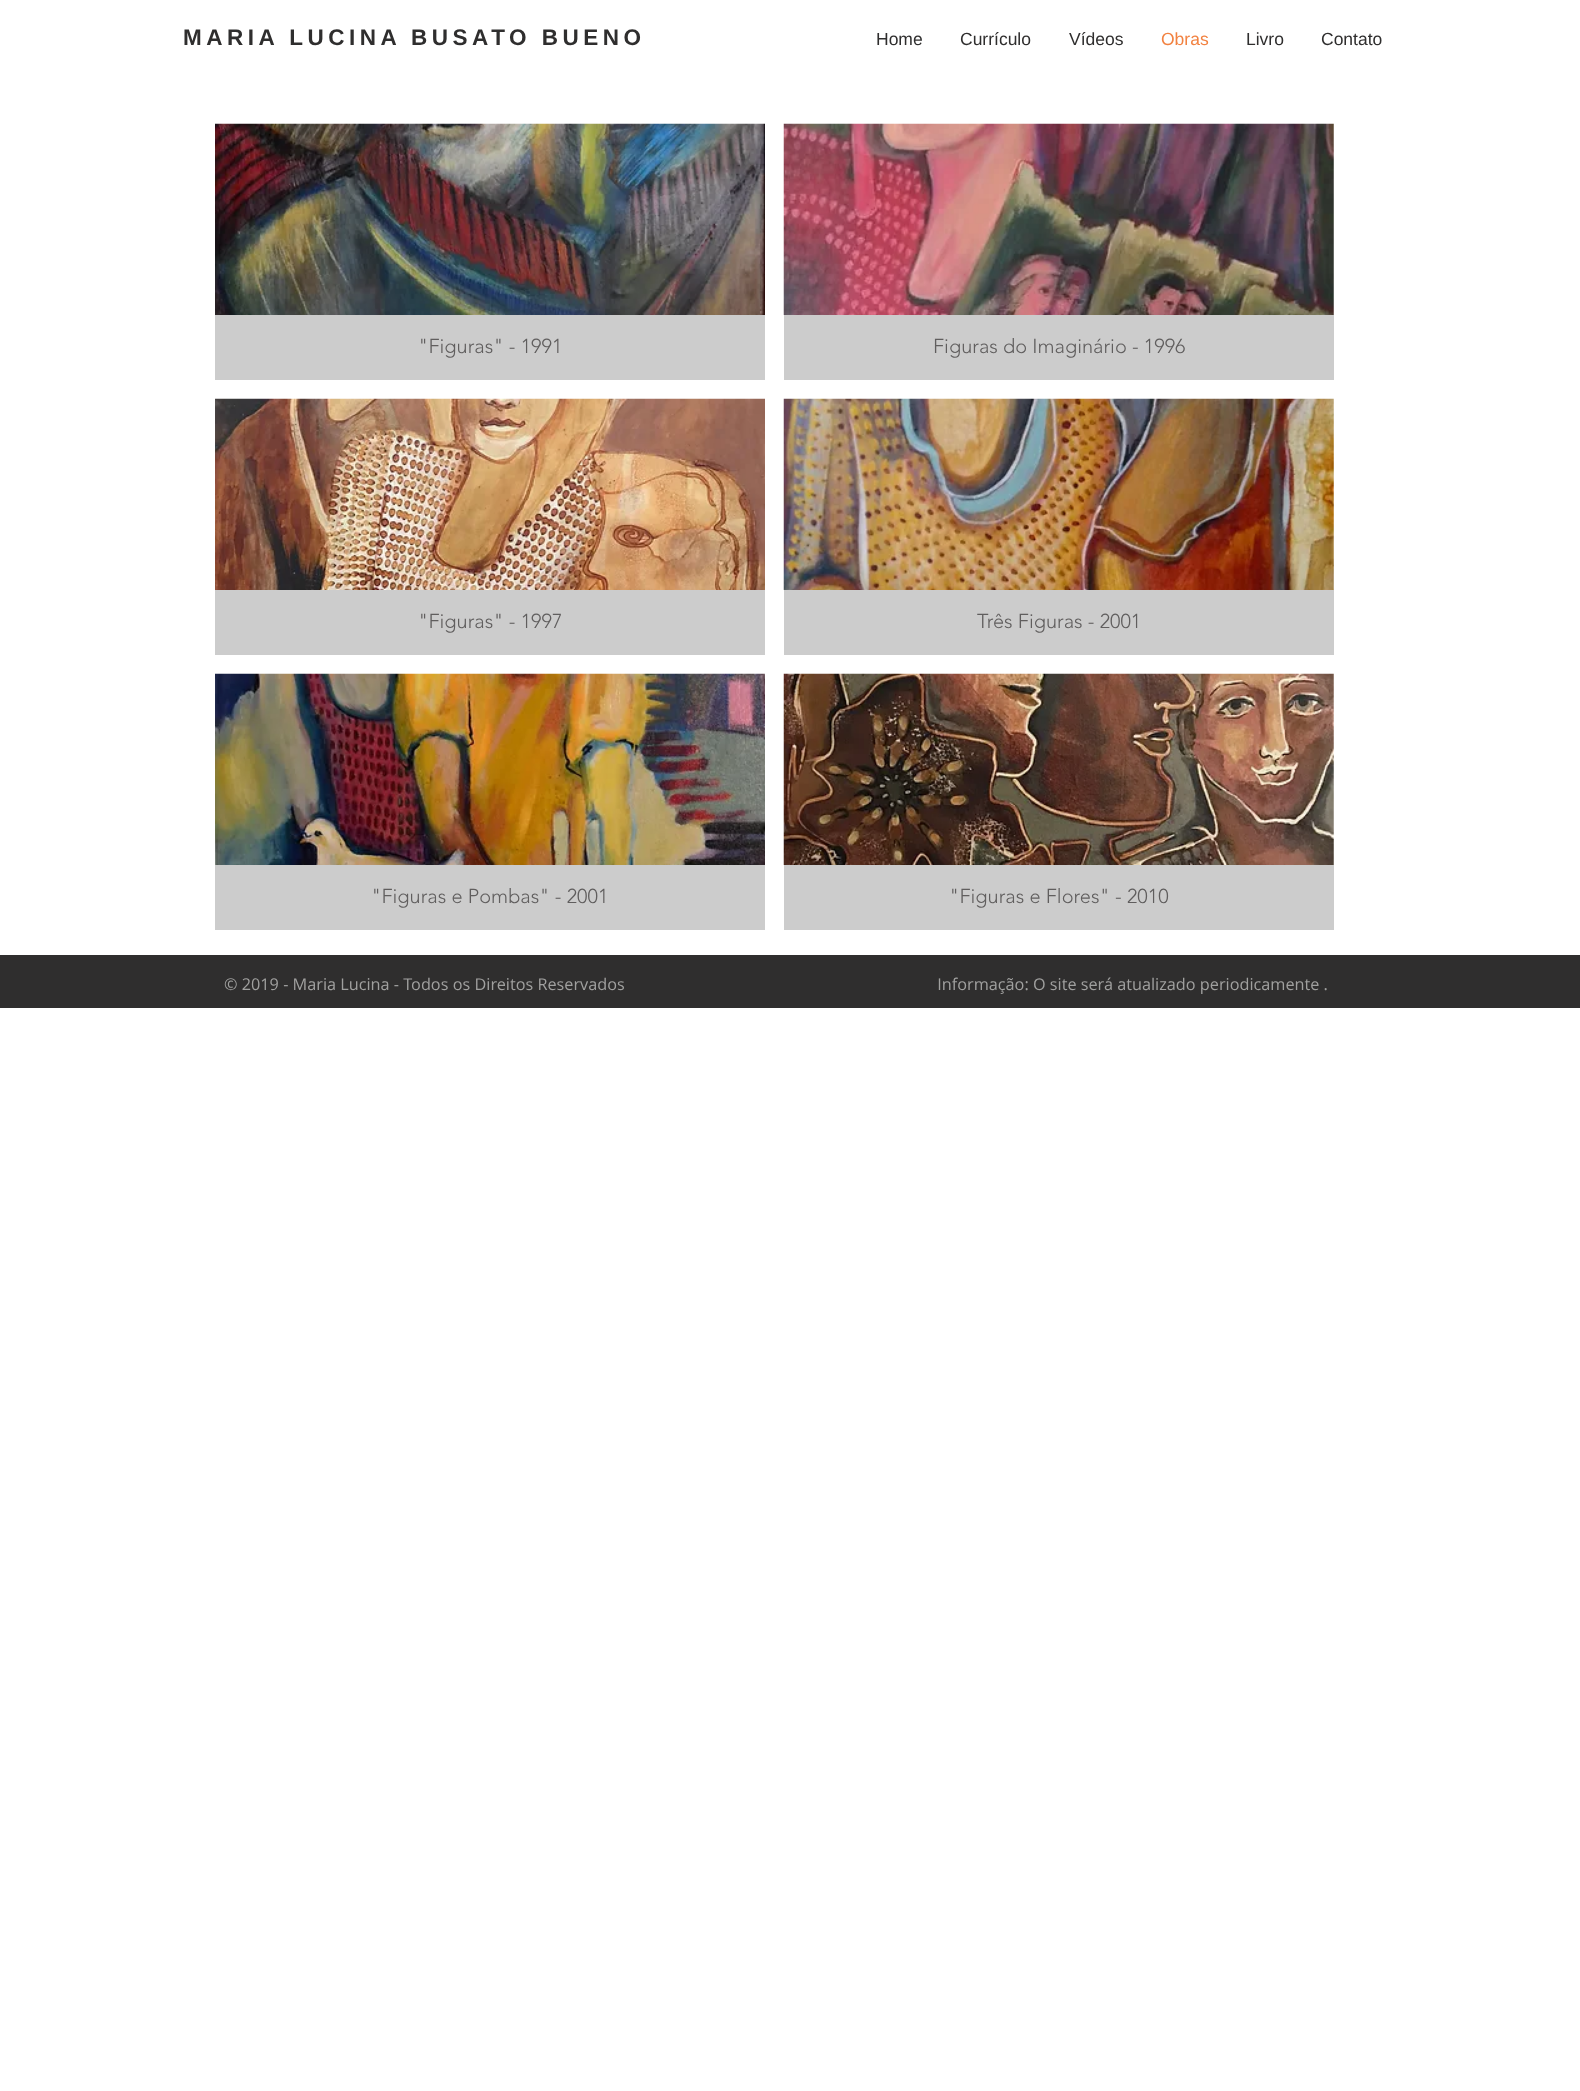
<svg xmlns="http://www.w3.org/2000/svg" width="1580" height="2091">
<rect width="100%" height="100%" fill="#fff"/>
<text x="183" y="45" style="font-family:Liberation Sans;font-size:22.5px;font-weight:bold;letter-spacing:4.5px;fill:#2f2e2e">MARIA LUCINA BUSATO BUENO</text>
<text x="876" y="45" style="font-family:Liberation Sans;font-size:17.5px;fill:#2f2e2e">Home</text>
<text x="960" y="45" style="font-family:Liberation Sans;font-size:17.5px;fill:#2f2e2e">Currículo</text>
<text x="1069" y="45" style="font-family:Liberation Sans;font-size:17.5px;fill:#2f2e2e">Vídeos</text>
<text x="1161" y="45" style="font-family:Liberation Sans;font-size:17.5px;fill:#f28241">Obras</text>
<text x="1246" y="45" style="font-family:Liberation Sans;font-size:17.5px;fill:#2f2e2e">Livro</text>
<text x="1321" y="45" style="font-family:Liberation Sans;font-size:17.5px;fill:#2f2e2e">Contato</text>
<image x="215" y="123" width="550" height="192" href="media/1.png"/>
<rect x="215" y="315" width="550" height="65" fill="#ccc"/>
<text x="418" y="353" style="font-family:'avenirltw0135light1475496';font-size:20px;font-weight:300;fill:#605e5e">"Figuras" - 1991</text>
<image x="783" y="123" width="551" height="192" href="media/2.png"/>
<rect x="784" y="315" width="550" height="65" fill="#ccc"/>
<text x="933" y="353" style="font-family:'avenirltw0135light1475496';font-size:20px;font-weight:300;fill:#605e5e">Figuras do Imaginário - 1996</text>
<image x="215" y="398" width="550" height="192" href="media/3.png"/>
<rect x="215" y="590" width="550" height="65" fill="#ccc"/>
<text x="418" y="628" style="font-family:'avenirltw0135light1475496';font-size:20px;font-weight:300;fill:#605e5e">"Figuras" - 1997</text>
<image x="783" y="398" width="551" height="192" href="media/4.png"/>
<rect x="784" y="590" width="550" height="65" fill="#ccc"/>
<text x="977" y="628" style="font-family:'avenirltw0135light1475496';font-size:20px;font-weight:300;fill:#605e5e">Três Figuras - 2001</text>
<image x="215" y="673" width="550" height="192" href="media/5.png"/>
<rect x="215" y="865" width="550" height="65" fill="#ccc"/>
<text x="371" y="903" style="font-family:'avenirltw0135light1475496';font-size:20px;font-weight:300;fill:#605e5e">"Figuras e Pombas" - 2001</text>
<image x="783" y="673" width="551" height="192" href="media/6.png"/>
<rect x="784" y="865" width="550" height="65" fill="#ccc"/>
<text x="949" y="903" style="font-family:'avenirltw0135light1475496';font-size:20px;font-weight:300;fill:#605e5e">"Figuras e Flores" - 2010</text>
<rect y="955" width="1580" height="53" fill="#2f2e2e"/>
<text x="224" y="990" style="font-family:Open Sans;font-size:16.25px;fill:#a0a09f" xml:space="preserve">© 2019 - Maria Lucina - Todos os Direitos Reservados                                                                          Informação: O site será atualizado periodicamente .</text>
</svg>
